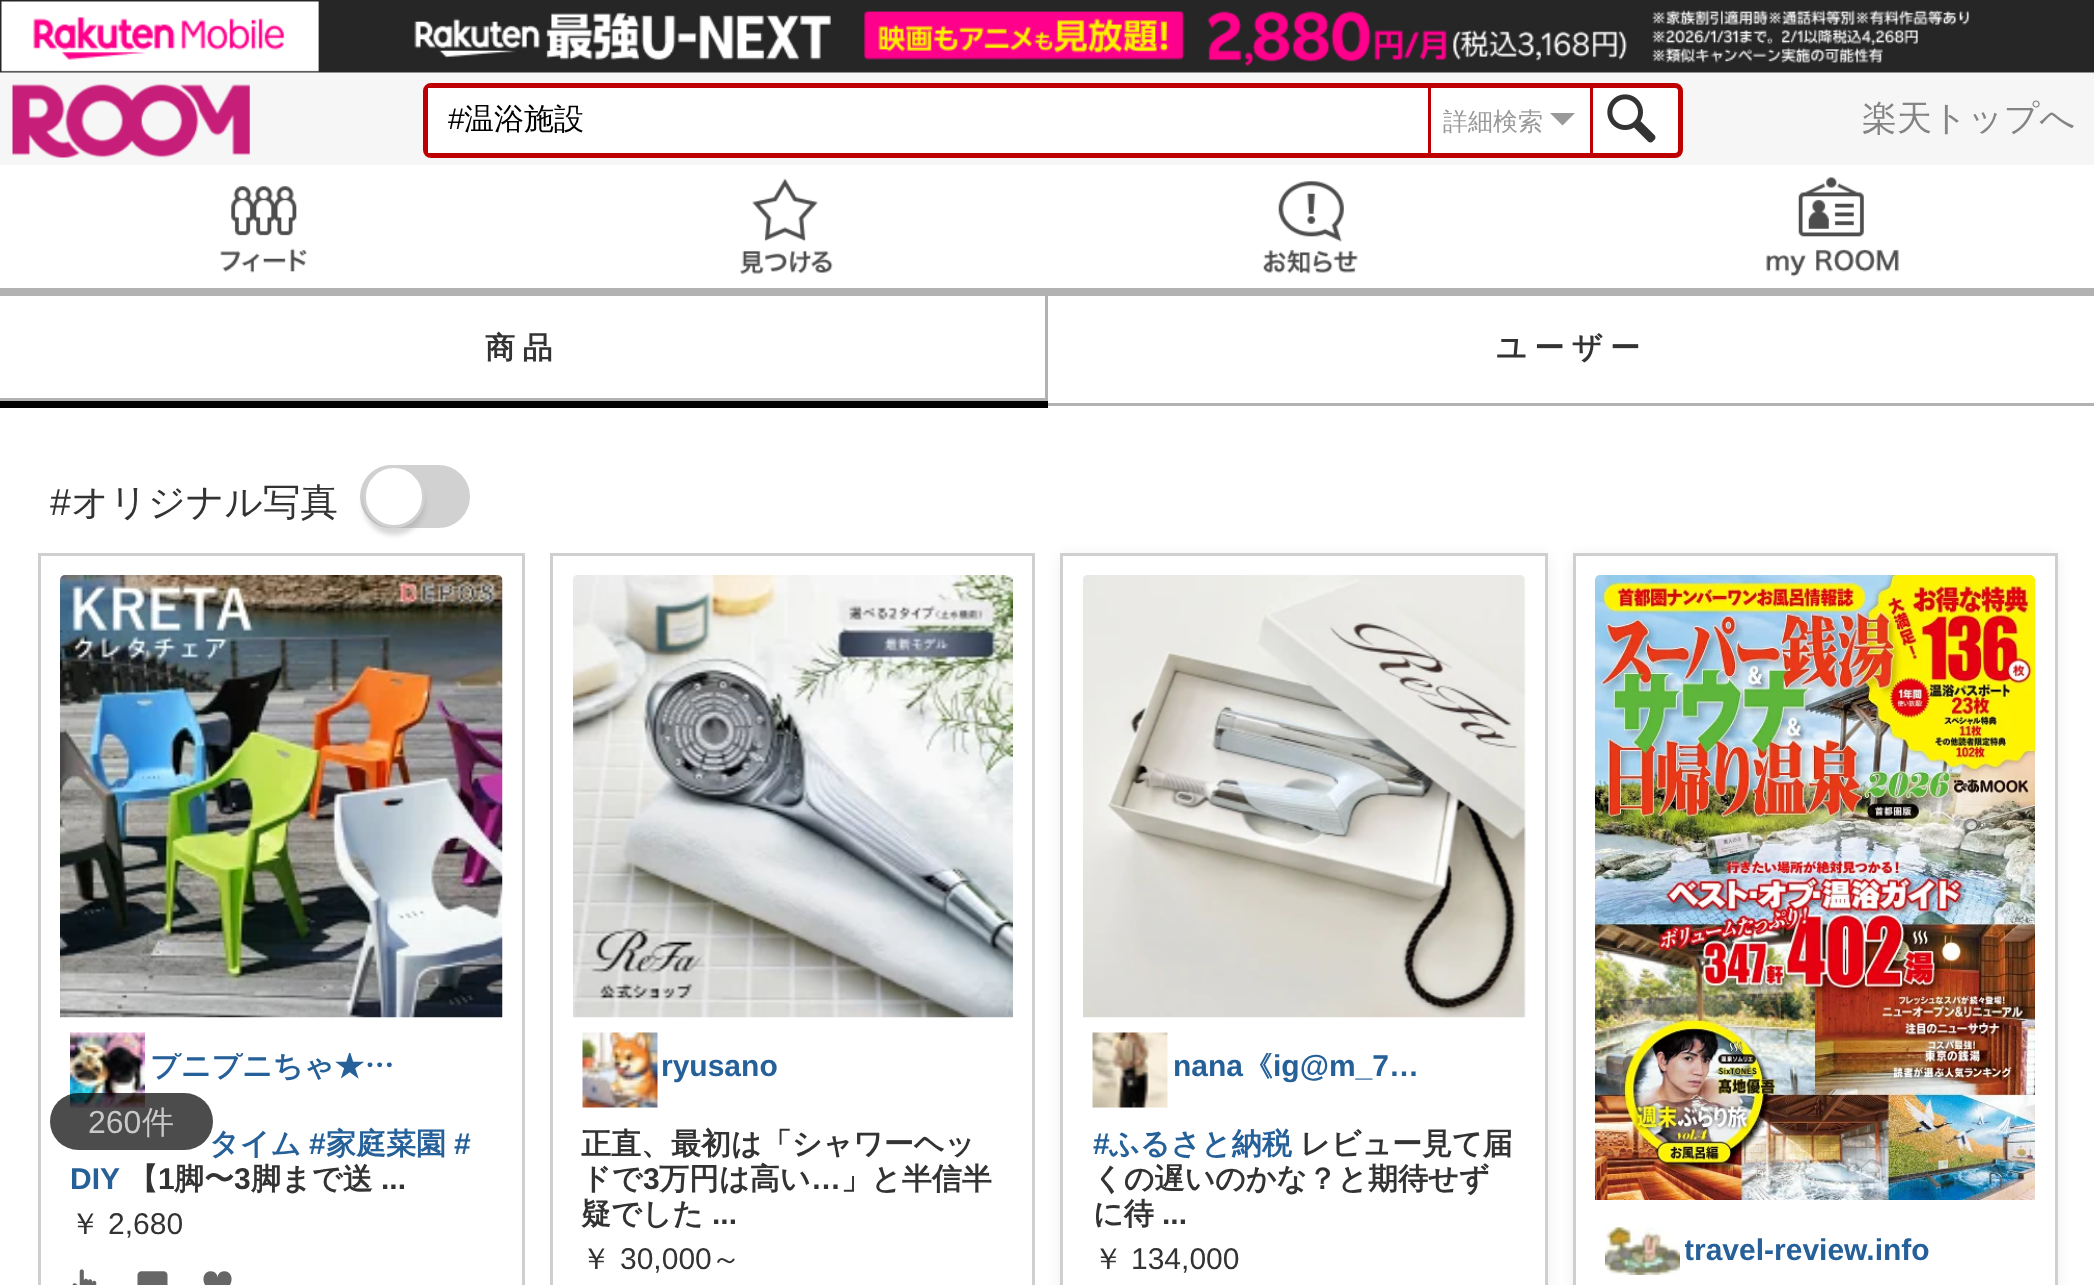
<svg xmlns="http://www.w3.org/2000/svg" width="2094" height="1285">
<defs>
<clipPath id="clip1"><rect x="150" y="1053" width="250" height="32"/></clipPath>
<clipPath id="clip2"><rect x="1173" y="1053" width="250" height="32"/></clipPath>
<clipPath id="clip3"><rect x="1685" y="1235" width="250" height="33"/></clipPath>
</defs>
<rect width="100%" height="100%" fill="#fff"/>
<image x="0" y="0" width="2094" height="73" href="media/1.png"/>
<rect y="73" width="2094" height="92" fill="#f6f6f6"/>
<rect x="425.5" y="85.5" width="1255" height="70" rx="5.5" fill="#fff" stroke="#bf0000" stroke-width="5"/>
<rect x="428" y="88" width="3" height="65" fill="#fff"/>
<text x="448" y="129" style="font-family:Liberation Sans;font-size:30px;fill:#000">#</text>
<text x="464" y="129" style="font-family:WenQuanYi Zen Hei;font-size:30px;font-weight:500;fill:#000">温浴施設</text>
<rect x="1428" y="88" width="3" height="65" fill="#bf0000"/>
<text x="1443" y="130" style="font-family:WenQuanYi Zen Hei;font-size:25px;font-weight:500;fill:#999">詳細検索</text>
<path d="M1550 113h25l-12.5 12.5z" fill="#999"/>
<rect x="1590" y="88" width="3" height="65" fill="#bf0000"/>
<image x="1607" y="94" width="49" height="49" href="media/2.png"/>
<image x="12" y="84" width="238" height="74" href="media/3.png"/>
<text x="1862" y="130" style="font-family:WenQuanYi Zen Hei;font-size:35px;font-weight:500;fill:#848484">楽天トップへ</text>
<image x="740" y="178" width="93" height="96" href="media/4.png"/>
<rect x="1048" y="288" width="1046" height="8" fill="#b2b2b2"/>
<image x="1766" y="177" width="133" height="100" href="media/5.png"/>
<rect x="1045" y="295" width="3" height="105" fill="#b2b2b2"/>
<rect y="288" width="1048" height="8" fill="#b2b2b2"/>
<image x="220" y="186" width="87" height="87" href="media/6.png"/>
<image x="1263" y="181" width="95" height="93" href="media/7.png"/>
<rect y="401" width="1048" height="7" fill="#000"/>
<rect y="398" width="1048" height="3" fill="#b2b2b2"/>
<text x="485" y="358" style="font-family:WenQuanYi Zen Hei;font-size:30px;font-weight:bold;letter-spacing:7.5px;fill:#333">商品</text>
<rect x="1048" y="403" width="1046" height="3" fill="#b2b2b2"/>
<text x="1496" y="358" style="font-family:WenQuanYi Zen Hei;font-size:30px;font-weight:bold;letter-spacing:7.5px;fill:#333">ユーザー</text>
<text x="50" y="515" style="font-family:Liberation Sans;font-size:37.5px;fill:#333">#</text>
<text x="71" y="515" style="font-family:WenQuanYi Zen Hei;font-size:37.5px;font-weight:500;fill:#333">オリジナル写真</text>
<rect x="361.5" y="466.5" width="107" height="60" rx="30" fill="#d1d1d1" stroke="#d1d1d1" stroke-width="3"/>
<rect x="363" y="473" width="62" height="62" rx="31" fill="#99999966" filter="blur(2.5px)"/>
<rect x="364.5" y="466.5" width="59" height="60" rx="29.5" fill="#fff" stroke="#d1d1d1" stroke-width="3"/>
<rect x="39.5" y="554.5" width="484" height="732" fill="none" stroke="#cfcfcf" stroke-width="3"/>
<image x="60" y="575" width="443" height="443" href="media/8.png"/>
<image x="70" y="1032" width="75" height="76" href="media/9.png"/>
<g clip-path="url(#clip1)">
<text x="150" y="1076" style="font-family:WenQuanYi Zen Hei;font-size:30px;font-weight:bold;fill:#266099">プニプニちゃ★…</text>
</g>
<text x="209" y="1154" style="font-family:WenQuanYi Zen Hei;font-size:30px;font-weight:bold;fill:#266099">タイム</text>
<text x="309" y="1154" style="font-family:Liberation Sans;font-size:30px;font-weight:bold;fill:#266099">#</text>
<text x="326" y="1154" style="font-family:WenQuanYi Zen Hei;font-size:30px;font-weight:bold;fill:#266099">家庭菜園</text>
<text x="454" y="1154" style="font-family:Liberation Sans;font-size:30px;font-weight:bold;fill:#266099">#</text>
<text x="70" y="1189" style="font-family:Liberation Sans;font-size:30px;font-weight:bold;fill:#266099">DIY</text>
<text x="128" y="1189" style="font-family:WenQuanYi Zen Hei;font-size:30px;font-weight:bold;fill:#333">【</text>
<text x="158" y="1189" style="font-family:Liberation Sans;font-size:30px;font-weight:bold;fill:#333">1</text>
<text x="174" y="1189" style="font-family:WenQuanYi Zen Hei;font-size:30px;font-weight:bold;fill:#333">脚〜</text>
<text x="234" y="1189" style="font-family:Liberation Sans;font-size:30px;font-weight:bold;fill:#333">3</text>
<text x="251" y="1189" style="font-family:WenQuanYi Zen Hei;font-size:30px;font-weight:bold;fill:#333">脚まで送</text>
<text x="381" y="1189" style="font-family:Liberation Sans;font-size:30px;font-weight:bold;fill:#333">...</text>
<text x="70" y="1234" style="font-family:WenQuanYi Zen Hei;font-size:30px;font-weight:500;fill:#333">￥</text>
<text x="108" y="1234" style="font-family:Liberation Sans;font-size:30px;fill:#333">2,680</text>
<image x="72" y="1269" width="25" height="16" href="media/10.png"/>
<image x="137" y="1271" width="31" height="14" href="media/11.png"/>
<image x="203" y="1271" width="29" height="14" href="media/12.png"/>
<rect x="551.5" y="554.5" width="482" height="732" fill="none" stroke="#cfcfcf" stroke-width="3"/>
<image x="573" y="575" width="440" height="443" href="media/13.png"/>
<image x="582" y="1032" width="76" height="76" href="media/14.png"/>
<text x="661" y="1076" style="font-family:Liberation Sans;font-size:30px;font-weight:bold;fill:#266099">ryusano</text>
<text x="581" y="1154" style="font-family:WenQuanYi Zen Hei;font-size:30px;font-weight:bold;fill:#333">正直、最初は「シャワーヘッ</text>
<text x="581" y="1189" style="font-family:WenQuanYi Zen Hei;font-size:30px;font-weight:bold;fill:#333">ドで</text>
<text x="643" y="1189" style="font-family:Liberation Sans;font-size:30px;font-weight:bold;fill:#333">3</text>
<text x="659" y="1189" style="font-family:WenQuanYi Zen Hei;font-size:30px;font-weight:bold;fill:#333">万円は高い</text>
<text x="811" y="1189" style="font-family:Liberation Sans;font-size:30px;font-weight:bold;fill:#333">…</text>
<text x="841" y="1189" style="font-family:WenQuanYi Zen Hei;font-size:30px;font-weight:bold;fill:#333">」と半信半</text>
<text x="581" y="1224" style="font-family:WenQuanYi Zen Hei;font-size:30px;font-weight:bold;fill:#333">疑でした</text>
<text x="712" y="1224" style="font-family:Liberation Sans;font-size:30px;font-weight:bold;fill:#333">...</text>
<text x="581" y="1269" style="font-family:WenQuanYi Zen Hei;font-size:30px;font-weight:500;fill:#333">￥</text>
<text x="620" y="1269" style="font-family:Liberation Sans;font-size:30px;fill:#333">30,000</text>
<text x="711" y="1269" style="font-family:WenQuanYi Zen Hei;font-size:30px;font-weight:500;fill:#333">～</text>
<rect x="1060" y="555" width="488" height="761" rx="8" fill="#efefef" filter="blur(7.5px)"/>
<rect x="1061.5" y="554.5" width="485" height="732" fill="#fff" stroke="#cfcfcf" stroke-width="3"/>
<image x="1083" y="575" width="443" height="443" href="media/15.png"/>
<image x="1092" y="1032" width="76" height="76" href="media/16.png"/>
<text x="1173" y="1076" style="font-family:Liberation Sans;font-size:30px;font-weight:bold;fill:#266099">nana</text>
<g clip-path="url(#clip2)">
<text x="1243" y="1076" style="font-family:WenQuanYi Zen Hei;font-size:30px;font-weight:bold;fill:#266099">《</text>
</g>
<text x="1273" y="1076" style="font-family:Liberation Sans;font-size:30px;font-weight:bold;fill:#266099">ig@m_7…</text>
<text x="1093" y="1154" style="font-family:Liberation Sans;font-size:30px;font-weight:bold;fill:#266099">#</text>
<text x="1109" y="1154" style="font-family:WenQuanYi Zen Hei;font-size:30px;font-weight:bold;fill:#266099">ふるさと納税</text>
<text x="1300" y="1154" style="font-family:WenQuanYi Zen Hei;font-size:30px;font-weight:bold;fill:#333">レビュー見て届</text>
<text x="1093" y="1189" style="font-family:WenQuanYi Zen Hei;font-size:30px;font-weight:bold;fill:#333">くの遅いのかな？と期待せず</text>
<text x="1093" y="1224" style="font-family:WenQuanYi Zen Hei;font-size:30px;font-weight:bold;fill:#333">に待</text>
<text x="1162" y="1224" style="font-family:Liberation Sans;font-size:30px;font-weight:bold;fill:#333">...</text>
<text x="1093" y="1269" style="font-family:WenQuanYi Zen Hei;font-size:30px;font-weight:500;fill:#333">￥</text>
<text x="1131" y="1269" style="font-family:Liberation Sans;font-size:30px;fill:#333">134,000</text>
<rect x="1573" y="555" width="485" height="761" rx="8" fill="#efefef" filter="blur(7.5px)"/>
<rect x="1574.5" y="554.5" width="482" height="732" fill="#fff" stroke="#cfcfcf" stroke-width="3"/>
<image x="1595" y="575" width="440" height="625" href="media/17.png"/>
<image x="1605" y="1227" width="75" height="48" href="media/18.png"/>
<g clip-path="url(#clip3)">
<text x="1684" y="1260" style="font-family:Liberation Sans;font-size:30px;font-weight:bold;fill:#266099">travel-review.info</text>
</g>
<rect x="50" y="1093" width="163" height="57" rx="28.5" fill="#000000b3"/>
<text x="88" y="1133" style="font-family:Liberation Sans;font-size:32px;fill:#c9c9c9">260</text>
<text x="142" y="1133" style="font-family:WenQuanYi Zen Hei;font-size:32px;font-weight:500;fill:#c9c9c9">件</text>
</svg>
